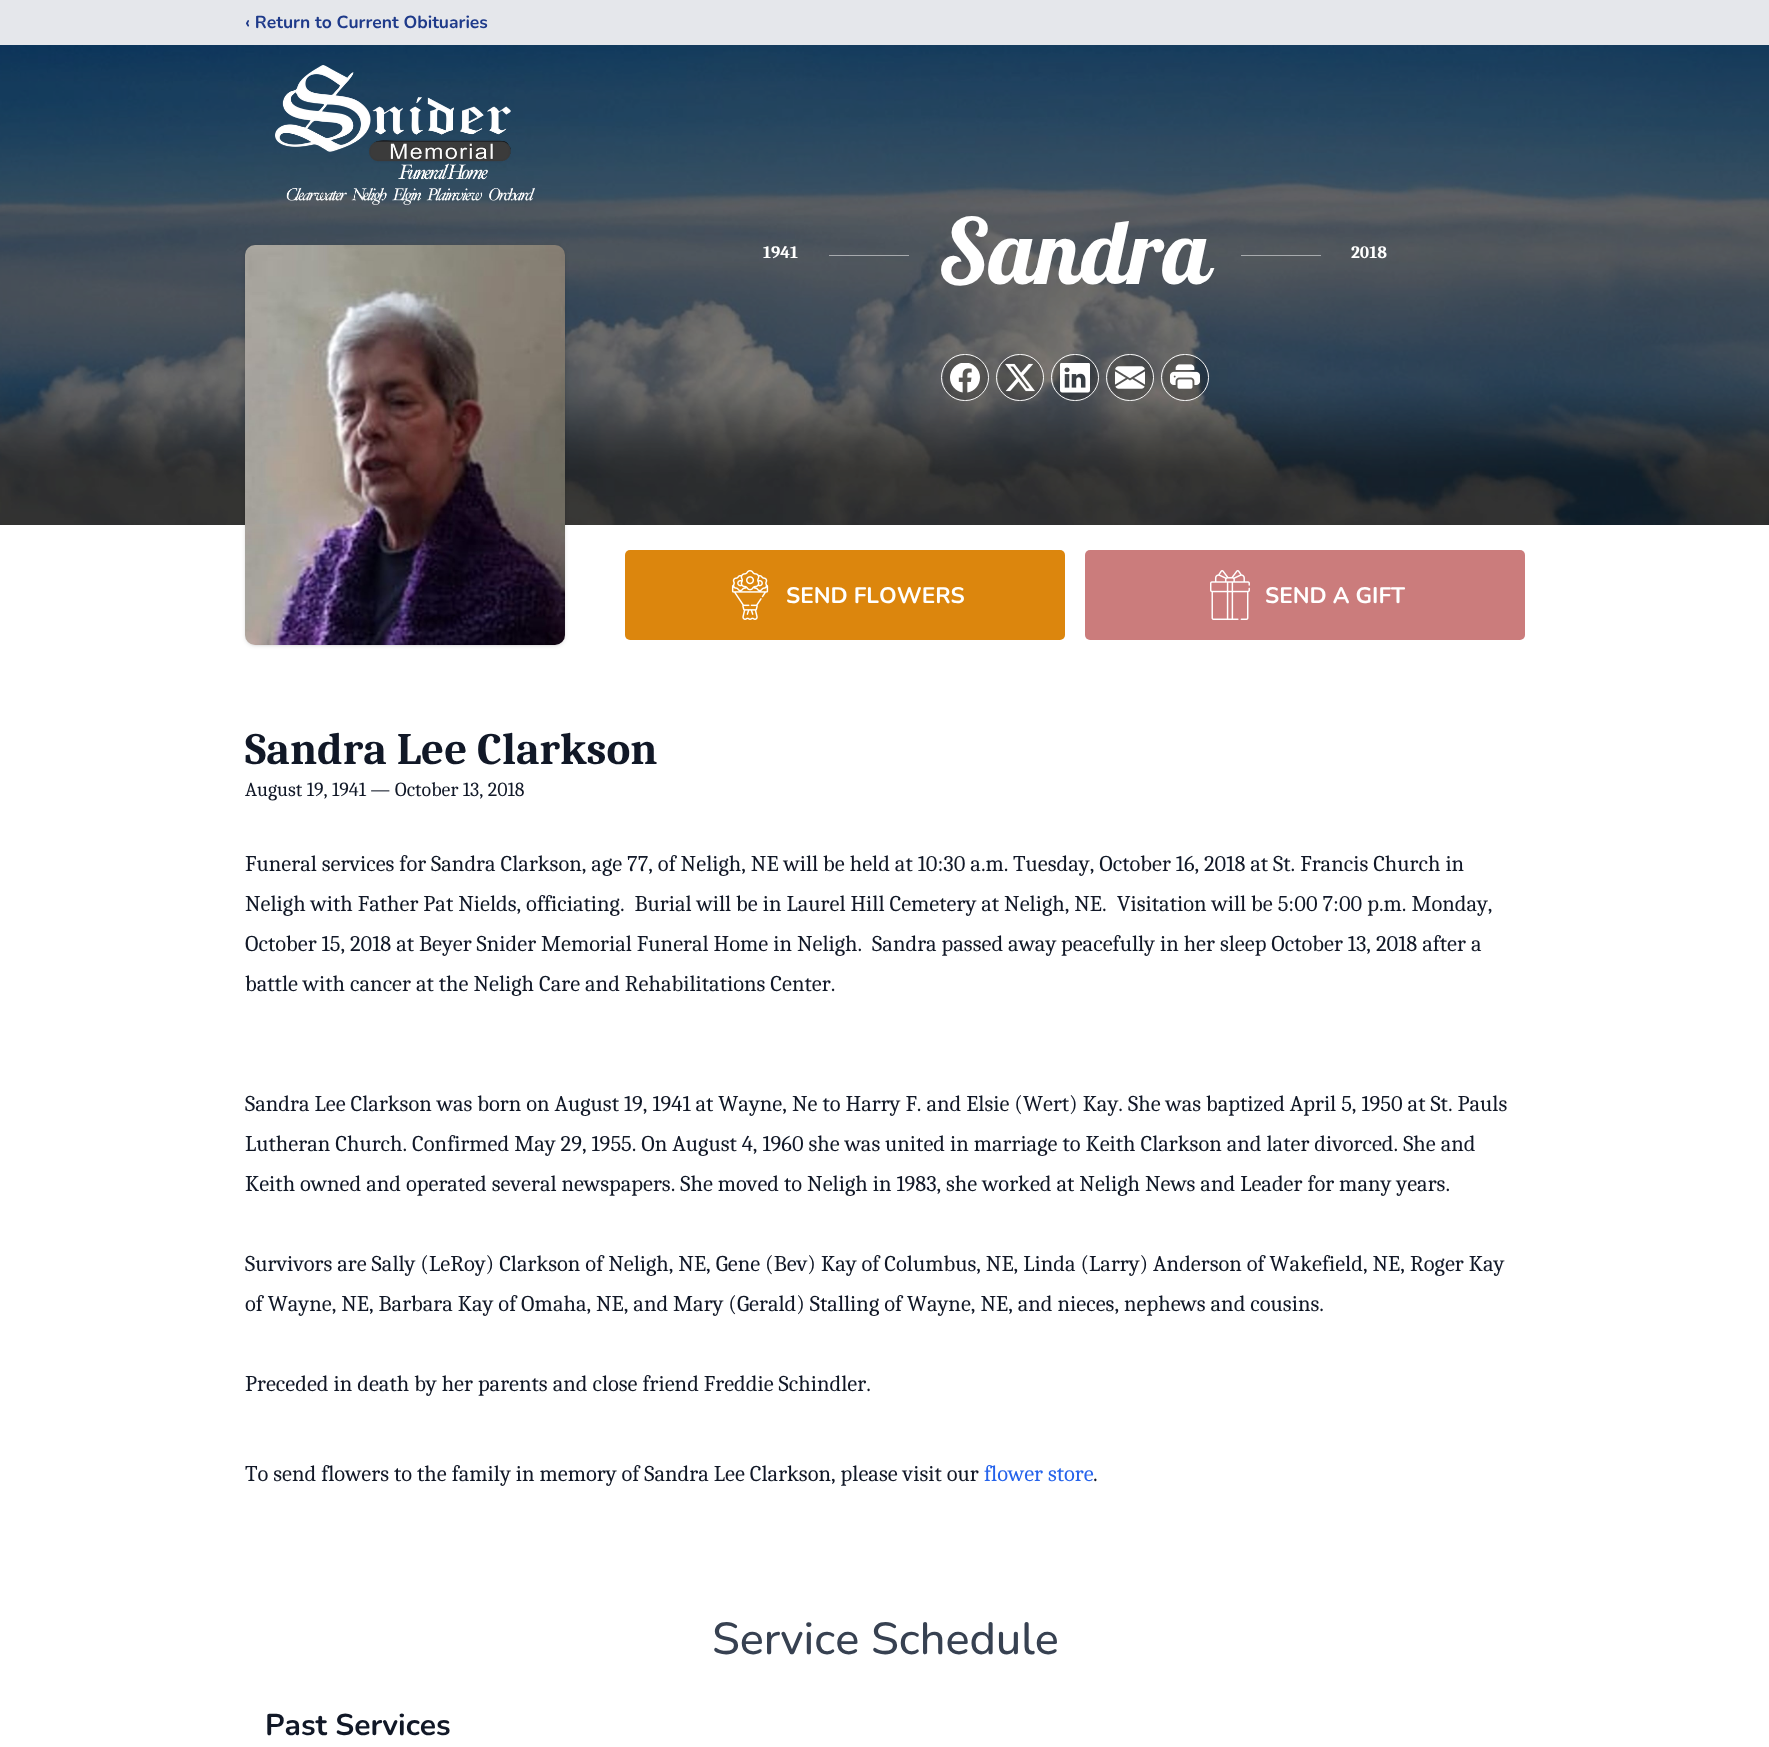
<svg xmlns="http://www.w3.org/2000/svg" width="1769" height="1747">
<style>*{font-kerning:none!important;font-variant-ligatures:none!important}</style>
<rect width="100%" height="100%" fill="#fff"/>
<rect width="1769" height="45" fill="#e5e7eb"/>
<text x="245" y="28" style="font-family:Nunito;font-size:17.5px;font-weight:bold;fill:#1e3a8a">‹ Return to Current Obituaries</text>
<image x="0" y="45" width="1769" height="480" href="media/1.png"/>
<image x="275" y="65" width="260" height="140" href="media/2.png"/>
<rect x="246" y="248" width="318" height="397" rx="9" fill="#0000001a" filter="blur(1px)"/>
<rect x="245" y="246" width="320" height="400" rx="10" fill="#0000001a" filter="blur(2px)"/>
<image x="245" y="245" width="320" height="400" href="media/3.png"/>
<text x="763" y="258" style="font-family:Caladea;font-size:17.5px;font-weight:bold;fill:#fff">1941</text>
<rect x="829" y="255" width="80" height="1" fill="#a7aaae"/>
<text x="938" y="284" style="font-family:Lobster;font-size:90px;fill:#fff">Sandra</text>
<rect x="1241" y="255" width="80" height="1" fill="#a8abae"/>
<text x="1351" y="258" style="font-family:Caladea;font-size:17.5px;font-weight:bold;fill:#fff">2018</text>
<rect x="941.5" y="354.5" width="47" height="46" rx="23" fill="none" stroke="#fff"/>
<circle cx="965.5" cy="377.5" r="22.5" fill="#00000033"/>
<image x="950" y="363" width="30" height="30" href="media/4.png"/>
<rect x="996.5" y="354.5" width="47" height="46" rx="23" fill="none" stroke="#fff"/>
<circle cx="1020.5" cy="377.5" r="22.5" fill="#00000033"/>
<image x="1005" y="363" width="30" height="29" href="media/5.png"/>
<rect x="1051.5" y="354.5" width="47" height="46" rx="23" fill="none" stroke="#fff"/>
<circle cx="1075.5" cy="377.5" r="22.5" fill="#00000033"/>
<image x="1060" y="363" width="30" height="30" href="media/6.png"/>
<rect x="1106.5" y="354.5" width="47" height="46" rx="23" fill="none" stroke="#fff"/>
<circle cx="1130.5" cy="377.5" r="22.5" fill="#00000033"/>
<image x="1115" y="366" width="30" height="23" href="media/7.png"/>
<rect x="1161.5" y="354.5" width="47" height="46" rx="23" fill="none" stroke="#fff"/>
<circle cx="1185.5" cy="377.5" r="22.5" fill="#00000033"/>
<image x="1170" y="364" width="30" height="25" href="media/8.png"/>
<rect x="625" y="550" width="440" height="90" rx="5" fill="#dc860d"/>
<image x="731" y="570" width="38" height="50" href="media/9.png"/>
<text x="786" y="603" style="font-family:Nunito;font-size:22.5px;font-weight:bold;fill:#fff">SEND FLOWERS</text>
<rect x="1085" y="550" width="440" height="90" rx="5" fill="#cb7c7c"/>
<image x="1210" y="570" width="40" height="50" href="media/10.png"/>
<text x="1265" y="603" style="font-family:Nunito;font-size:22.5px;font-weight:bold;fill:#fff">SEND A GIFT</text>
<text x="245" y="764" style="font-family:Caladea;font-size:45px;font-weight:bold;fill:#111827">Sandra Lee Clarkson</text>
<text x="245" y="796" style="font-family:Caladea;font-size:20px;fill:#111827">August 19, 1941 — October 13, 2018</text>
<text x="245" y="871" style="font-family:Caladea;font-size:22.5px;fill:#111827">Funeral services for Sandra Clarkson, age 77, of Neligh, NE will be held at 10:30 a.m.</text>
<text x="1013" y="871" style="font-family:Caladea;font-size:22.5px;fill:#111827">Tuesday, October 16,</text>
<text x="1204" y="871" style="font-family:Caladea;font-size:22.5px;fill:#111827">2018 at St. Francis Church in</text>
<text x="245" y="911" style="font-family:Caladea;font-size:22.5px;fill:#111827" xml:space="preserve">Neligh with Father Pat Nields, officiating.  Burial will be in Laurel Hill Cemetery at Neligh, NE.</text>
<text x="1117" y="911" style="font-family:Caladea;font-size:22.5px;fill:#111827">Visitation will be 5:00 7:00 p.m. Monday,</text>
<text x="245" y="951" style="font-family:Caladea;font-size:22.5px;fill:#111827" xml:space="preserve">October 15, 2018 at Beyer Snider Memorial Funeral Home in Neligh.  Sandra passed away</text>
<text x="1061" y="951" style="font-family:Caladea;font-size:22.5px;fill:#111827">peacefully in her sleep October 13, 2018 after a</text>
<text x="245" y="991" style="font-family:Caladea;font-size:22.5px;fill:#111827">battle with cancer at the Neligh Care and Rehabilitations Center.</text>
<text x="245" y="1111" style="font-family:Caladea;font-size:22.5px;fill:#111827">Sandra Lee Clarkson was born on August 19, 1941 at Wayne,</text>
<text x="792" y="1111" style="font-family:Caladea;font-size:22.5px;fill:#111827">Ne to Harry F. and Elsie (Wert) Kay.</text>
<text x="1128" y="1111" style="font-family:Caladea;font-size:22.5px;fill:#111827">She was baptized April 5, 1950 at St. Pauls</text>
<text x="245" y="1151" style="font-family:Caladea;font-size:22.5px;fill:#111827">Lutheran Church. Confirmed May 29, 1955. On August 4, 1960 she was</text>
<text x="885" y="1151" style="font-family:Caladea;font-size:22.5px;fill:#111827">united in marriage to Keith Clarkson and later divorced. She and</text>
<text x="245" y="1191" style="font-family:Caladea;font-size:22.5px;fill:#111827">Keith owned and operated several newspapers. She moved to Neligh in 1983,</text>
<text x="946" y="1191" style="font-family:Caladea;font-size:22.5px;fill:#111827">she worked at Neligh News and Leader for many years.</text>
<text x="245" y="1271" style="font-family:Caladea;font-size:22.5px;fill:#111827">Survivors are Sally (LeRoy) Clarkson of Neligh, NE, Gene (Bev)</text>
<text x="821" y="1271" style="font-family:Caladea;font-size:22.5px;fill:#111827">Kay of Columbus, NE, Linda (Larry) Anderson of Wakefield, NE,</text>
<text x="1410" y="1271" style="font-family:Caladea;font-size:22.5px;fill:#111827">Roger Kay</text>
<text x="245" y="1311" style="font-family:Caladea;font-size:22.5px;fill:#111827">of Wayne, NE, Barbara Kay of Omaha,</text>
<text x="596" y="1311" style="font-family:Caladea;font-size:22.5px;fill:#111827">NE, and Mary (Gerald) Stalling of Wayne, NE, and nieces,</text>
<text x="1124" y="1311" style="font-family:Caladea;font-size:22.5px;fill:#111827">nephews and cousins.</text>
<text x="245" y="1391" style="font-family:Caladea;font-size:22.5px;fill:#111827">Preceded in death by her parents and close friend Freddie Schindler.</text>
<text x="245" y="1481" style="font-family:Caladea;font-size:22.5px;fill:#111827">To send flowers to the family in memory of Sandra Lee Clarkson, please visit our</text>
<text x="984" y="1481" style="font-family:Caladea;font-size:22.5px;fill:#2563eb">flower store</text>
<text x="1093" y="1481" style="font-family:Caladea;font-size:22.5px;fill:#111827">.</text>
<text x="712" y="1654" style="font-family:Nunito;font-size:45px;font-weight:500;fill:#374151">Service Schedule</text>
<text x="265" y="1735" style="font-family:Nunito;font-size:30px;font-weight:bold;fill:#111827">Past Services</text>
</svg>
